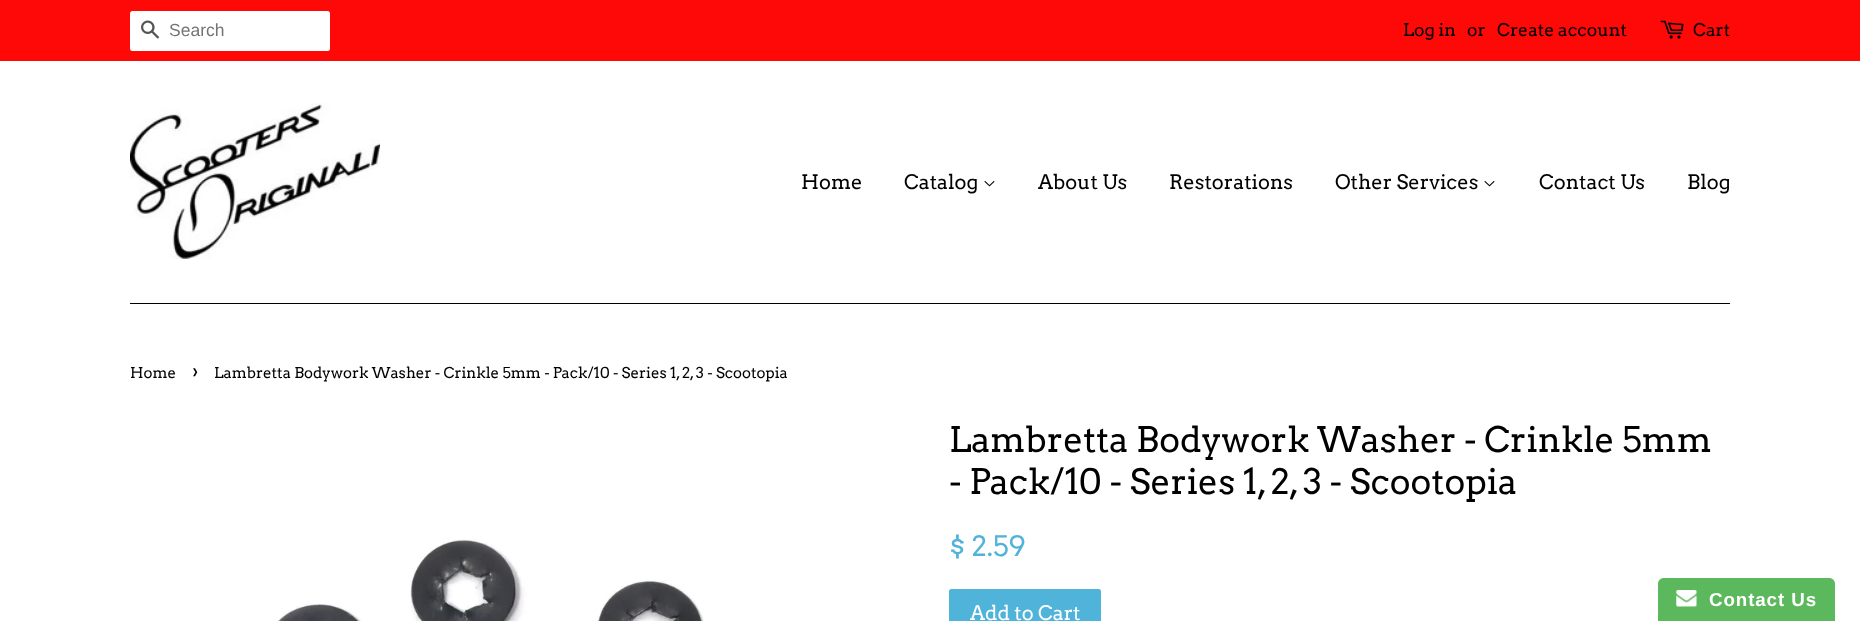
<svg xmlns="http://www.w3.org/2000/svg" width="1860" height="621">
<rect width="100%" height="100%" fill="#fff"/>
<rect width="1860" height="61" fill="#ff0808"/>
<rect x="130" y="11" width="200" height="40" rx="2.5" fill="#fff"/>
<image x="141" y="20" width="18" height="19" href="media/1.png"/>
<text x="169" y="36" style="font-family:Liberation Sans;font-size:17.5px;fill:#757575">Search</text>
<text x="1403" y="36" style="font-family:Arvo;font-size:17.5px;fill:#000">Log in</text>
<text x="1467" y="36" style="font-family:Arvo;font-size:17.5px;fill:#000">or</text>
<text x="1497" y="36" style="font-family:Arvo;font-size:17.5px;fill:#000">Create account</text>
<image x="1660" y="20" width="24" height="19" href="media/2.png"/>
<text x="1693" y="36" style="font-family:Arvo;font-size:17.5px;fill:#000">Cart</text>
<rect x="130" y="303" width="1600" height="1" fill="#000"/>
<image x="130" y="103" width="250" height="156" href="media/3.png"/>
<text x="801" y="189" style="font-family:Arvo;font-size:20px;fill:#000">Home</text>
<text x="904" y="189" style="font-family:Arvo;font-size:20px;fill:#000">Catalog</text>
<image x="984" y="180" width="11" height="7" href="media/4.png"/>
<text x="1038" y="189" style="font-family:Arvo;font-size:20px;fill:#000">About Us</text>
<text x="1169" y="189" style="font-family:Arvo;font-size:20px;fill:#000">Restorations</text>
<text x="1335" y="189" style="font-family:Arvo;font-size:20px;fill:#000">Other Services</text>
<image x="1484" y="180" width="11" height="7" href="media/4.png"/>
<text x="1539" y="189" style="font-family:Arvo;font-size:20px;fill:#000">Contact Us</text>
<text x="1687" y="189" style="font-family:Arvo;font-size:20px;fill:#000">Blog</text>
<text x="130" y="378" style="font-family:Arvo;font-size:15px;fill:#000">Home</text>
<text x="192" y="378" style="font-family:Arvo;font-size:21px;fill:#000">›</text>
<text x="214" y="378" style="font-family:Arvo;font-size:15px;fill:#000">Lambretta Bodywork Washer - Crinkle 5mm - Pack/10 - Series 1, 2, 3 - Scootopia</text>
<image x="278" y="539" width="426" height="82" href="media/5.png"/>
<text x="949" y="452" style="font-family:Arvo;font-size:35px;fill:#000">Lambretta Bodywork Washer - Crinkle 5mm</text>
<text x="949" y="494" style="font-family:Arvo;font-size:35px;fill:#000">- Pack/10 - Series 1, 2, 3 - Scootopia</text>
<text x="949" y="556" style="font-family:Arvo;font-size:28px;fill:#50b3da">$ 2.59</text>
<rect x="949" y="589" width="152" height="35" rx="2.5" fill="#50b3da"/>
<text x="970" y="620" style="font-family:Arvo;font-size:20px;fill:#fff">Add to Cart</text>
<path d="M1664 578h165c3.5 0 6 2.5 6 6v37h-177v-37c0-3.5 2.5-6 6-6z" fill="#5cb85c"/>
<image x="1676" y="590" width="21" height="17" href="media/6.png"/>
<text x="1709" y="606" style="font-family:Liberation Sans;font-size:18.75px;font-weight:bold;letter-spacing:0.9px;fill:#fff">Contact Us</text>
</svg>
